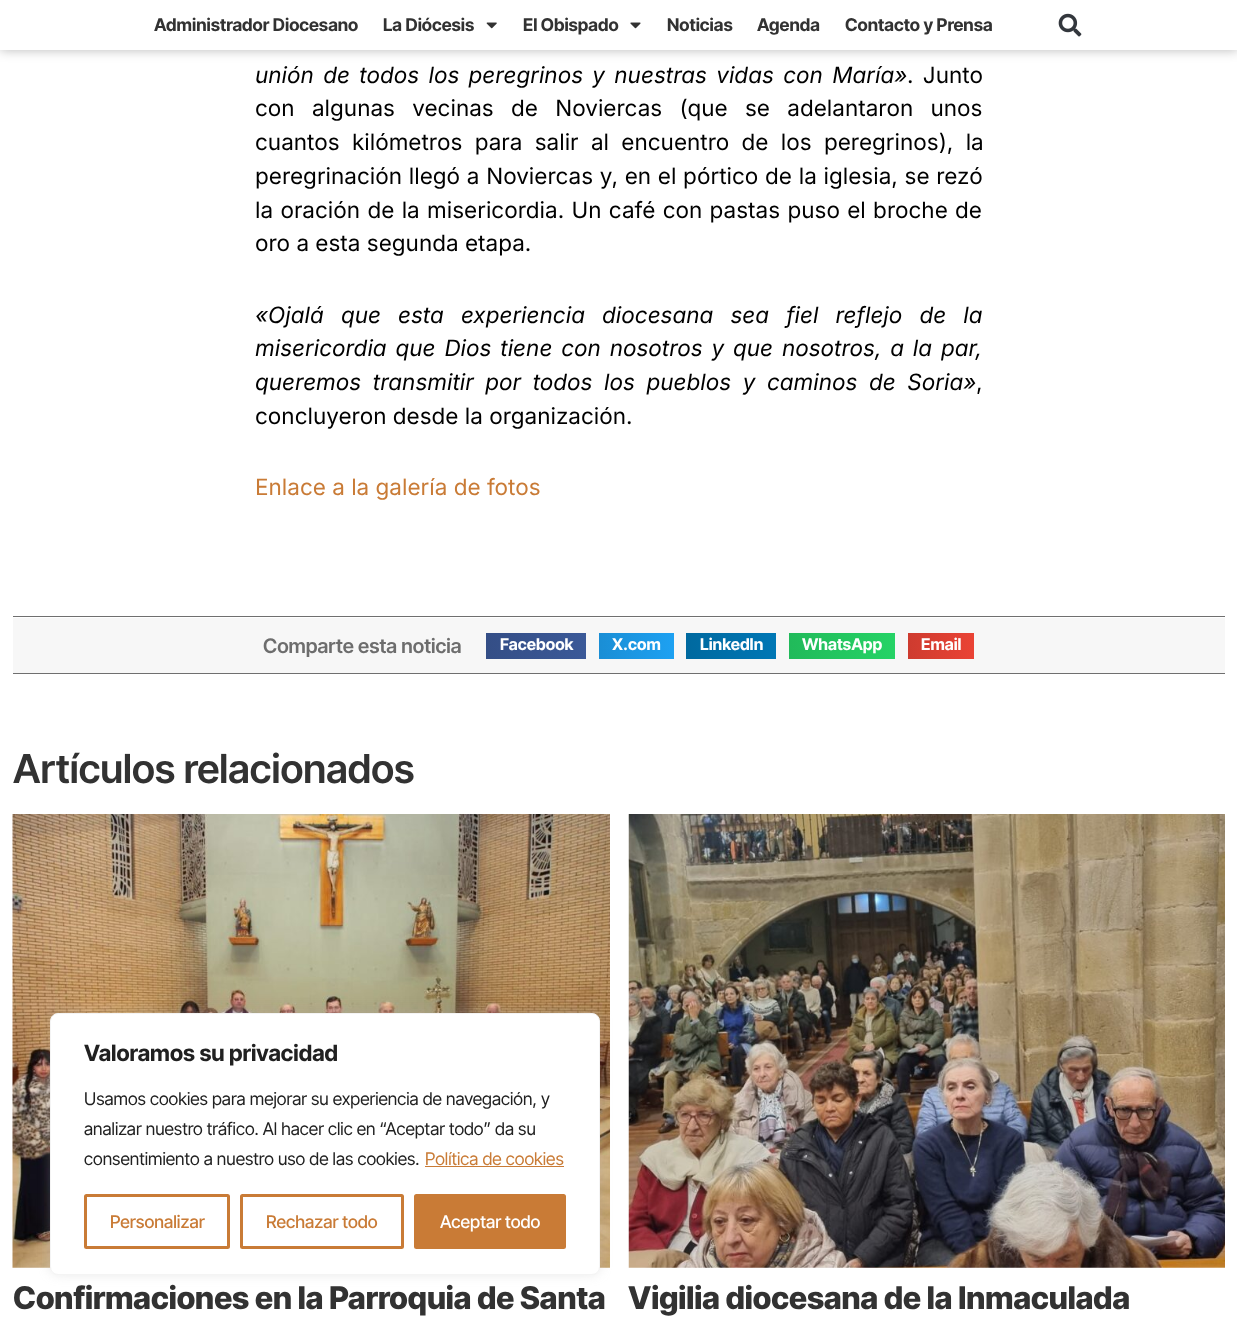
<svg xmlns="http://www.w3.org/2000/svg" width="1237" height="1324">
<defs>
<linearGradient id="g1" gradientUnits="userSpaceOnUse" x1="486" y1="646" x2="586" y2="646"><stop offset="0" stop-color="#344e86"/><stop offset="1" stop-color="#3b5998"/></linearGradient>
<linearGradient id="g2" gradientUnits="userSpaceOnUse" x1="599" y1="646" x2="674" y2="646"><stop offset="0" stop-color="#1a8ed5"/><stop offset="1" stop-color="#1da1f2"/></linearGradient>
<linearGradient id="g3" gradientUnits="userSpaceOnUse" x1="686" y1="646" x2="776" y2="646"><stop offset="0" stop-color="#00699f"/><stop offset="1" stop-color="#0077b5"/></linearGradient>
<linearGradient id="g4" gradientUnits="userSpaceOnUse" x1="789" y1="646" x2="895" y2="646"><stop offset="0" stop-color="#21ba5a"/><stop offset="1" stop-color="#25d366"/></linearGradient>
<linearGradient id="g5" gradientUnits="userSpaceOnUse" x1="908" y1="646" x2="974" y2="646"><stop offset="0" stop-color="#ce3b2f"/><stop offset="1" stop-color="#ea4335"/></linearGradient>
</defs>
<rect width="100%" height="100%" fill="#fff"/>
<rect width="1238" height="50" fill="#00000047" filter="blur(6px)"/>
<rect width="1237" height="50" fill="#fff"/>
<text x="154" y="31" style="font-family:Inter Tight;font-size:17.5px;font-weight:bold;fill:#323232">Administrador Diocesano</text>
<text x="383" y="31" style="font-family:Inter Tight;font-size:17.5px;font-weight:bold;fill:#323232">La Diócesis</text>
<image x="486" y="22" width="11" height="7" href="media/1.png"/>
<text x="523" y="31" style="font-family:Inter Tight;font-size:17.5px;font-weight:bold;fill:#323232">El Obispado</text>
<image x="630" y="22" width="11" height="7" href="media/2.png"/>
<text x="667" y="31" style="font-family:Inter Tight;font-size:17.5px;font-weight:bold;fill:#323232">Noticias</text>
<text x="757" y="31" style="font-family:Inter Tight;font-size:17.5px;font-weight:bold;fill:#323232">Agenda</text>
<text x="845" y="31" style="font-family:Inter Tight;font-size:17.5px;font-weight:bold;fill:#323232">Contacto y Prensa</text>
<image x="1058" y="13" width="24" height="24" href="media/3.png"/>
<text x="255" y="83" word-spacing="3" style="font-family:Inter;font-size:22.5px;font-style:italic;fill:#000">unión de todos los peregrinos y nuestras vidas con María»</text>
<text x="907" y="83" word-spacing="3" style="font-family:Inter;font-size:22.5px;fill:#000">. Junto</text>
<text x="255" y="116" word-spacing="11" style="font-family:Inter;font-size:22.5px;fill:#000">con algunas vecinas de Noviercas (que se adelantaron unos</text>
<text x="255" y="150" word-spacing="6" style="font-family:Inter;font-size:22.5px;fill:#000">cuantos kilómetros para salir al encuentro de los peregrinos), la</text>
<text x="255" y="184" word-spacing="0.4" style="font-family:Inter;font-size:22.5px;fill:#000">peregrinación llegó a Noviercas y, en el pórtico de la iglesia, se rezó</text>
<text x="255" y="218" word-spacing="1" style="font-family:Inter;font-size:22.5px;fill:#000">la oración de la misericordia. Un café con pastas puso el broche de</text>
<text x="255" y="251" style="font-family:Inter;font-size:22.5px;fill:#000">oro a esta segunda etapa.</text>
<text x="255" y="323" word-spacing="10.75" style="font-family:Inter;font-size:22.5px;font-style:italic;fill:#000">«Ojalá que esta experiencia diocesana sea fiel reflejo de la</text>
<text x="255" y="356" word-spacing="2.5" style="font-family:Inter;font-size:22.5px;font-style:italic;fill:#000">misericordia que Dios tiene con nosotros y que nosotros, a la par,</text>
<text x="255" y="390" word-spacing="5.25" style="font-family:Inter;font-size:22.5px;font-style:italic;fill:#000">queremos transmitir por todos los pueblos y caminos de Soria»</text>
<text x="976" y="390" style="font-family:Inter;font-size:22.5px;fill:#000">,</text>
<text x="255" y="424" style="font-family:Inter;font-size:22.5px;fill:#000">concluyeron desde la organización.</text>
<text x="255" y="495" style="font-family:Inter;font-size:22.5px;fill:#c97b36">Enlace a la galería de fotos</text>
<rect x="13" y="618" width="1212" height="55" fill="#f7f7f7"/>
<rect x="13" y="616" width="1212" height="1" fill="#6f6f6f"/>
<rect x="13" y="673" width="1212" height="1" fill="#6f6f6f"/>
<text x="263" y="653" style="font-family:Inter Tight;font-size:20px;font-weight:600;fill:#6d6d6d">Comparte esta noticia</text>
<rect x="486" y="633" width="100" height="26" fill="url(#g1)"/>
<text x="500" y="650" style="font-family:Inter Tight;font-size:16.25px;font-weight:bold;fill:#fff">Facebook</text>
<rect x="599" y="633" width="75" height="26" fill="url(#g2)"/>
<text x="612" y="650" style="font-family:Inter Tight;font-size:16.25px;font-weight:bold;fill:#fff">X.com</text>
<rect x="686" y="633" width="90" height="26" fill="url(#g3)"/>
<text x="700" y="650" style="font-family:Inter Tight;font-size:16.25px;font-weight:bold;fill:#fff">LinkedIn</text>
<rect x="789" y="633" width="106" height="26" fill="url(#g4)"/>
<text x="802" y="650" style="font-family:Inter Tight;font-size:16.25px;font-weight:bold;fill:#fff">WhatsApp</text>
<rect x="908" y="633" width="66" height="26" fill="url(#g5)"/>
<text x="921" y="650" style="font-family:Inter Tight;font-size:16.25px;font-weight:bold;fill:#fff">Email</text>
<text x="13" y="783" style="font-family:Inter Tight;font-size:40px;font-weight:600;fill:#323232">Artículos relacionados</text>
<image x="12" y="814" width="598" height="454" href="media/4.png"/>
<text x="13" y="1309" style="font-family:Inter Tight;font-size:31.25px;font-weight:800;fill:#323232">Confirmaciones en la Parroquia de Santa</text>
<image x="628" y="814" width="597" height="454" href="media/5.png"/>
<text x="628" y="1309" style="font-family:Inter Tight;font-size:31.25px;font-weight:800;fill:#323232">Vigilia diocesana de la Inmaculada</text>
<rect x="50" y="1011" width="550" height="263" rx="8" fill="#acabab4d" filter="blur(6px)"/>
<rect x="50.5" y="1013.5" width="549" height="261" rx="7.5" fill="#fff" stroke="#f4f4f4"/>
<text x="84" y="1061" style="font-family:Inter Tight;font-size:22.5px;font-weight:bold;fill:#212121">Valoramos su privacidad</text>
<text x="84" y="1105" style="font-family:Inter Tight;font-size:17.5px;fill:#212121">Usamos cookies para mejorar su experiencia de navegación, y</text>
<text x="84" y="1135" style="font-family:Inter Tight;font-size:17.5px;fill:#212121">analizar nuestro tráfico. Al hacer clic en “Aceptar todo” da su</text>
<text x="84" y="1165" style="font-family:Inter Tight;font-size:17.5px;fill:#212121">consentimiento a nuestro uso de las cookies.</text>
<text x="425" y="1165" style="font-family:Inter Tight;font-size:17.5px;fill:#c97b36">Política de cookies</text>
<rect x="425" y="1166" width="139" height="1" fill="#c97b36"/>
<rect x="85.5" y="1195.5" width="143" height="52" rx="1" fill="none" stroke="#c97b36" stroke-width="3"/>
<text x="110" y="1228" style="font-family:Inter Tight;font-size:17.5px;font-weight:500;fill:#c97b36">Personalizar</text>
<rect x="241.5" y="1195.5" width="161" height="52" rx="1" fill="none" stroke="#c97b36" stroke-width="3"/>
<text x="266" y="1228" style="font-family:Inter Tight;font-size:17.5px;font-weight:500;fill:#c97b36">Rechazar todo</text>
<rect x="415.5" y="1195.5" width="149" height="52" rx="1" fill="#c97b36" stroke="#c97b36" stroke-width="3"/>
<text x="440" y="1228" style="font-family:Inter Tight;font-size:17.5px;font-weight:500;fill:#fff">Aceptar todo</text>
</svg>
